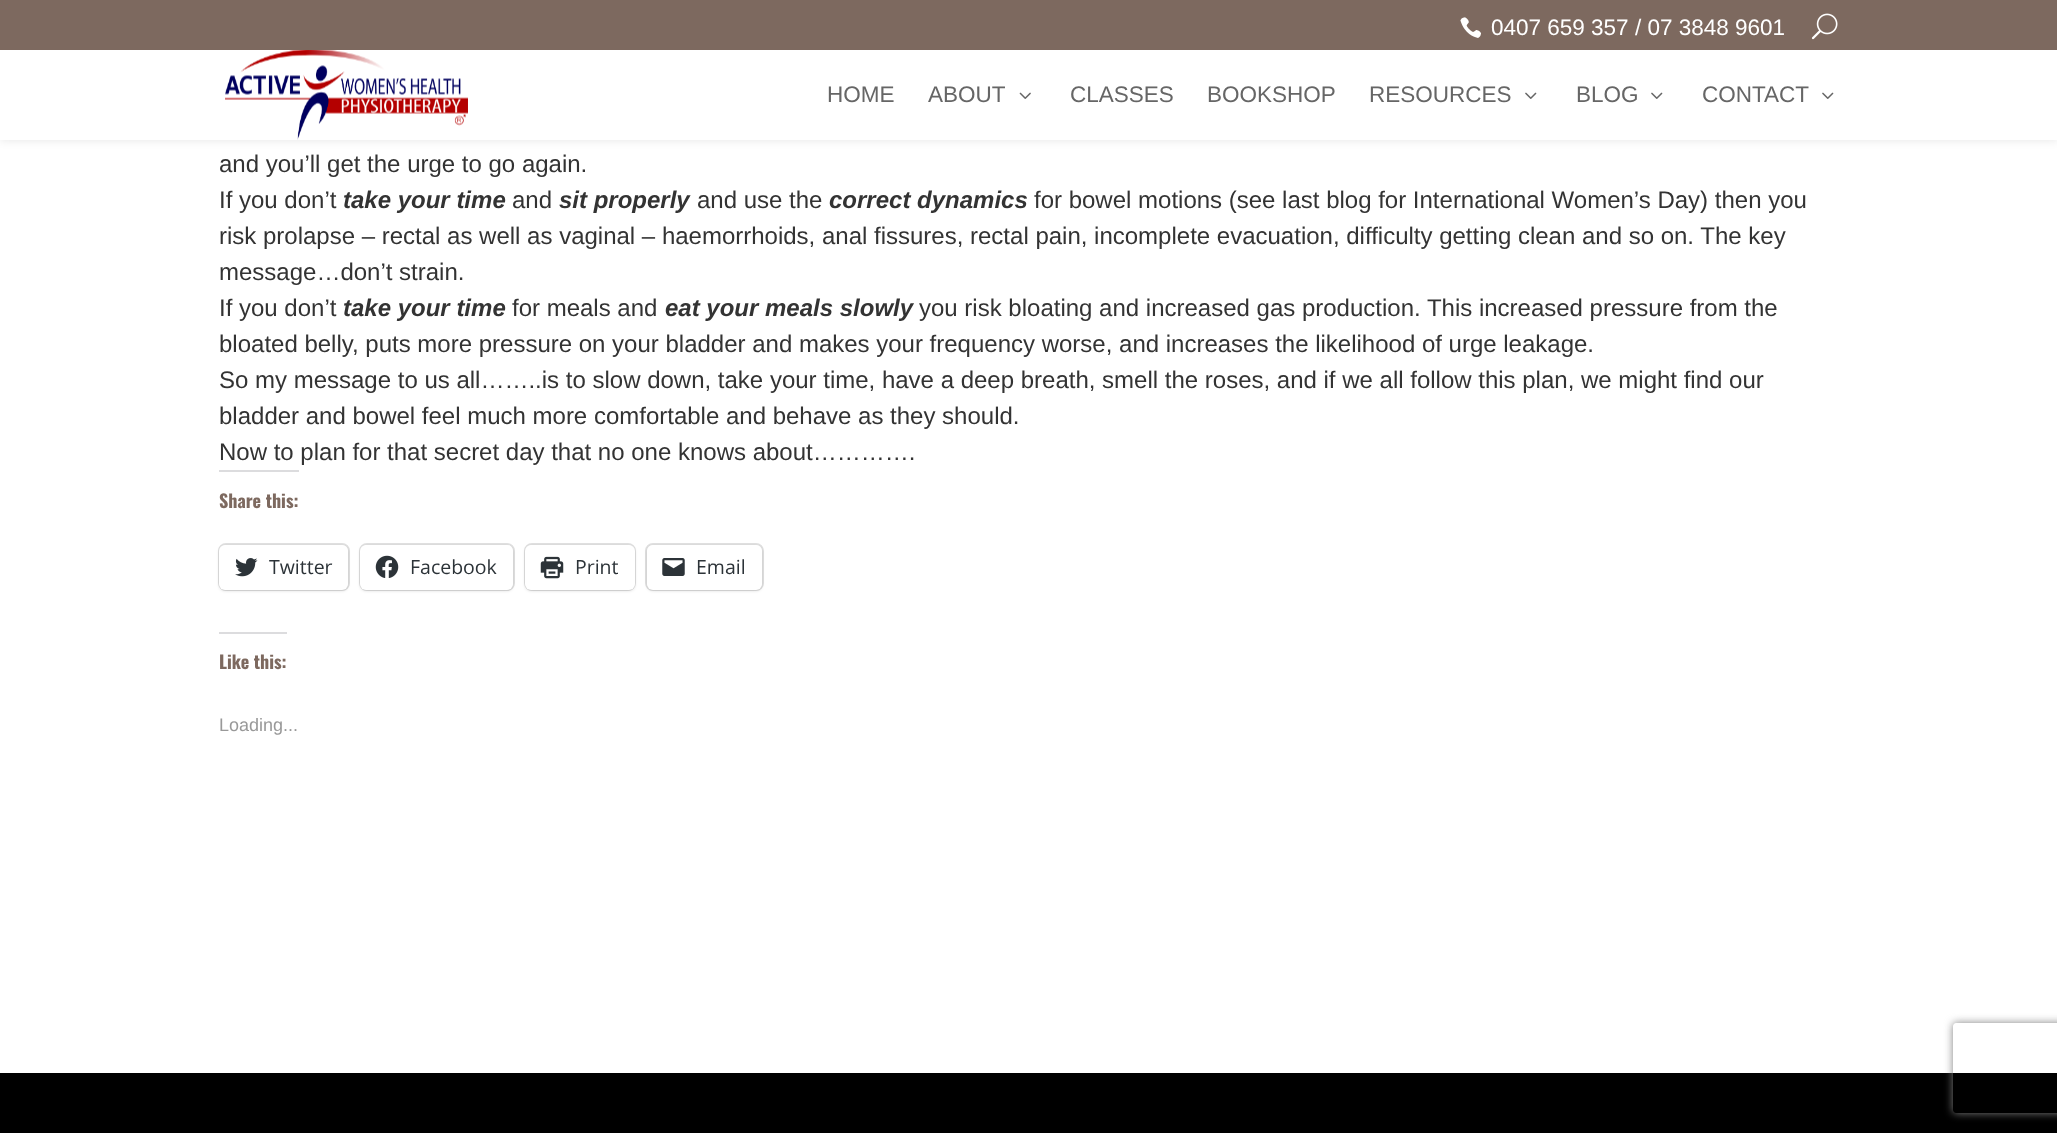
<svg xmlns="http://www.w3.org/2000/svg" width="2057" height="1133">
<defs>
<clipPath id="clip1"><path d="M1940 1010h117v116h-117zm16 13h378c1.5 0 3 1.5 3 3v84c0 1.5-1.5 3-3 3h-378c-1.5 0-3-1.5-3-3v-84c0-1.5 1.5-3 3-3z" clip-rule="evenodd"/></clipPath>
</defs>
<rect width="100%" height="100%" fill="#fff"/>
<rect y="50" width="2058" height="90" fill="#0000001a" filter="blur(5px)"/>
<rect width="2057" height="50" fill="#7d695f"/>
<image x="1460" y="17" width="21" height="21" href="media/1.png"/>
<text x="1491" y="35" style="font-family:Liberation Sans;font-size:22.5px;fill:#fff">0407 659 357 / 07 3848 9601</text>
<image x="1811" y="13" width="27" height="27" href="media/2.png"/>
<rect y="50" width="2057" height="90" fill="#fff"/>
<image x="225" y="50" width="243" height="90" href="media/3.png"/>
<text x="827" y="102" style="font-family:Liberation Sans;font-size:22.5px;fill:#666">HOME</text>
<text x="928" y="102" style="font-family:Liberation Sans;font-size:22.5px;fill:#666">ABOUT</text>
<image x="1019" y="92" width="12" height="7" href="media/4.png"/>
<text x="1070" y="102" style="font-family:Liberation Sans;font-size:22.5px;fill:#666">CLASSES</text>
<text x="1207" y="102" style="font-family:Liberation Sans;font-size:22.5px;fill:#666">BOOKSHOP</text>
<text x="1369" y="102" style="font-family:Liberation Sans;font-size:22.5px;fill:#666">RESOURCES</text>
<image x="1525" y="92" width="12" height="7" href="media/5.png"/>
<text x="1576" y="102" style="font-family:Liberation Sans;font-size:22.5px;fill:#666">BLOG</text>
<image x="1651" y="92" width="12" height="7" href="media/5.png"/>
<text x="1702" y="102" style="font-family:Liberation Sans;font-size:22.5px;fill:#666">CONTACT</text>
<image x="1822" y="92" width="12" height="7" href="media/5.png"/>
<text x="219" y="172" style="font-family:Liberation Sans;font-size:24px;fill:#333">and you’ll get the urge to go again.</text>
<text x="219" y="208" style="font-family:Liberation Sans;font-size:24px;fill:#333">If you don’t</text>
<text x="343" y="208" style="font-family:Liberation Sans;font-size:24px;font-weight:bold;font-style:italic;fill:#333">take your time</text>
<text x="512" y="208" style="font-family:Liberation Sans;font-size:24px;fill:#333">and</text>
<text x="559" y="208" style="font-family:Liberation Sans;font-size:24px;font-weight:bold;font-style:italic;fill:#333">sit properly</text>
<text x="697" y="208" style="font-family:Liberation Sans;font-size:24px;fill:#333">and use the</text>
<text x="829" y="208" style="font-family:Liberation Sans;font-size:24px;font-weight:bold;font-style:italic;fill:#333">correct dynamics</text>
<text x="1034" y="208" style="font-family:Liberation Sans;font-size:24px;fill:#333">for bowel motions (see last blog for International Women’s Day) then you</text>
<text x="219" y="244" style="font-family:Liberation Sans;font-size:24px;fill:#333">risk prolapse – rectal as well as vaginal – haemorrhoids, anal fissures, rectal pain, incomplete evacuation, difficulty getting clean and so on. The key</text>
<text x="219" y="280" style="font-family:Liberation Sans;font-size:24px;fill:#333">message…don’t strain.</text>
<text x="219" y="316" style="font-family:Liberation Sans;font-size:24px;fill:#333">If you don’t</text>
<text x="343" y="316" style="font-family:Liberation Sans;font-size:24px;font-weight:bold;font-style:italic;fill:#333">take your time</text>
<text x="512" y="316" style="font-family:Liberation Sans;font-size:24px;fill:#333">for meals and</text>
<text x="665" y="316" style="font-family:Liberation Sans;font-size:24px;font-weight:bold;font-style:italic;fill:#333">eat your meals slowly</text>
<text x="919" y="316" style="font-family:Liberation Sans;font-size:24px;fill:#333">you risk bloating and increased gas production. This increased pressure from the</text>
<text x="219" y="352" style="font-family:Liberation Sans;font-size:24px;fill:#333">bloated belly, puts more pressure on your bladder and makes your frequency worse, and increases the likelihood of urge leakage.</text>
<text x="219" y="388" style="font-family:Liberation Sans;font-size:24px;fill:#333">So my message to us all……..is to slow down, take your time, have a deep breath, smell the roses, and if we all follow this plan, we might find our</text>
<text x="219" y="424" style="font-family:Liberation Sans;font-size:24px;fill:#333">bladder and bowel feel much more comfortable and behave as they should.</text>
<text x="219" y="460" style="font-family:Liberation Sans;font-size:24px;fill:#333">Now to plan for that secret day that no one knows about………….</text>
<rect x="219" y="470" width="80" height="2" fill="#dcdcde"/>
<text x="219" y="508" style="font-family:Oswald;font-size:18px;font-weight:bold;fill:#7d695f">Share this:</text>
<rect x="219" y="544" width="130" height="46" rx="7" fill="none" stroke="#e0e0e0" stroke-width="2"/>
<rect x="219" y="546" width="129" height="45" rx="6" fill="#0000001f" filter="blur(1.5px)"/>
<rect x="219" y="545" width="129" height="45" rx="6" fill="#fff"/>
<image x="235" y="558" width="23" height="19" href="media/6.png"/>
<text x="269" y="574" style="font-family:Open Sans;font-size:19.5px;fill:#2c3338">Twitter</text>
<rect x="360" y="544" width="154" height="46" rx="7" fill="none" stroke="#e0e0e0" stroke-width="2"/>
<rect x="360" y="546" width="153" height="45" rx="6" fill="#0000001f" filter="blur(1.5px)"/>
<rect x="360" y="545" width="153" height="45" rx="6" fill="#fff"/>
<image x="375" y="555" width="24" height="23" href="media/7.png"/>
<text x="410" y="574" style="font-family:Open Sans;font-size:19.5px;fill:#2c3338">Facebook</text>
<rect x="525" y="544" width="110" height="46" rx="7" fill="none" stroke="#e0e0e0" stroke-width="2"/>
<rect x="525" y="546" width="110" height="45" rx="6" fill="#0000001f" filter="blur(1.5px)"/>
<rect x="525" y="545" width="110" height="45" rx="6" fill="#fff"/>
<image x="540" y="556" width="24" height="23" href="media/8.png"/>
<text x="575" y="574" style="font-family:Open Sans;font-size:19.5px;fill:#2c3338">Print</text>
<rect x="646" y="544" width="117" height="46" rx="7" fill="none" stroke="#e0e0e0" stroke-width="2"/>
<rect x="647" y="546" width="115" height="45" rx="6" fill="#0000001f" filter="blur(1.5px)"/>
<rect x="647" y="545" width="115" height="45" rx="6" fill="#fff"/>
<image x="662" y="558" width="23" height="18" href="media/9.png"/>
<text x="696" y="574" style="font-family:Open Sans;font-size:19.5px;fill:#2c3338">Email</text>
<rect x="219" y="632" width="68" height="2" fill="#dcdcde"/>
<text x="219" y="669" style="font-family:Oswald;font-size:18px;font-weight:bold;fill:#7d695f">Like this:</text>
<text x="219" y="731" style="font-family:Liberation Sans;font-size:18px;fill:#999">Loading...</text>
<rect y="1073" width="2057" height="60" fill="#000"/>
<g clip-path="url(#clip1)">
<rect x="1953" y="1023" width="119" height="90" rx="3" fill="#808080" filter="blur(4px)"/>
</g>
</svg>
